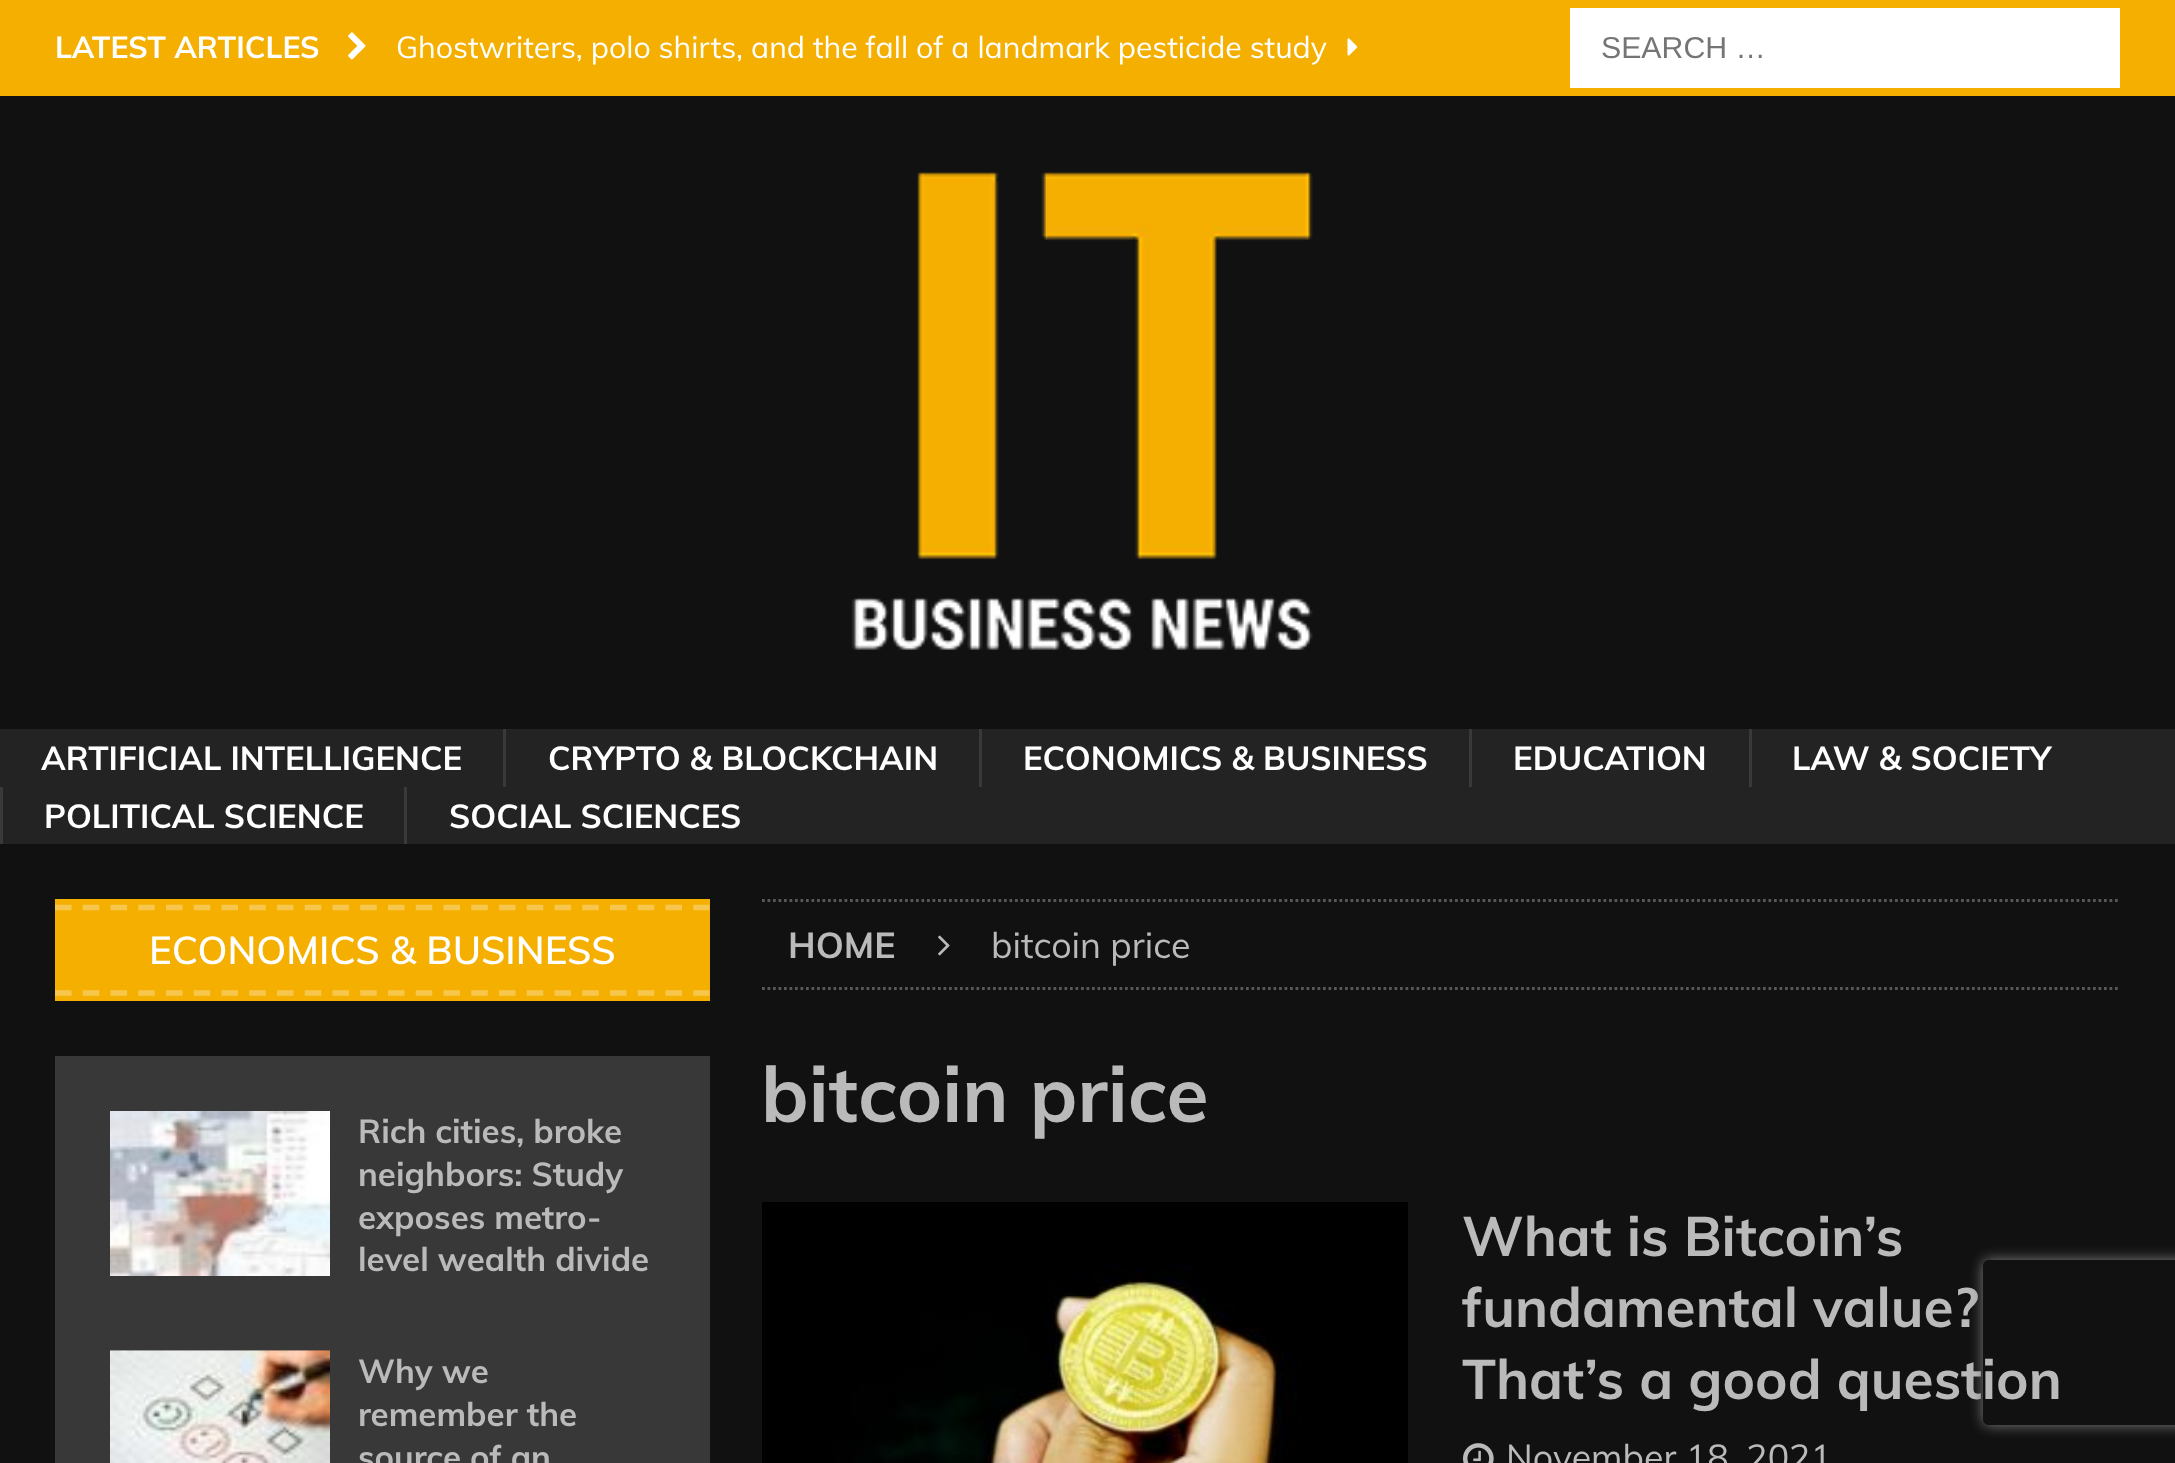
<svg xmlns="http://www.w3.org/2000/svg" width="2175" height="1463">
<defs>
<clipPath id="clip1"><path d="M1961 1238h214v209h-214zm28 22h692c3.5 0 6 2.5 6 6v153c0 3.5-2.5 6-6 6h-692c-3.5 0-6-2.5-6-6v-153c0-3.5 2.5-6 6-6z" clip-rule="evenodd"/></clipPath>
</defs>
<rect width="100%" height="100%" fill="#111"/>
<rect width="2175" height="96" fill="#f4af00"/>
<text x="55" y="58" style="font-family:Muli;font-size:30.25px;font-weight:bold;fill:#fff">LATEST ARTICLES</text>
<image x="348" y="32" width="18" height="28" href="media/1.png"/>
<text x="396" y="58" style="font-family:Muli;font-size:30.25px;fill:#fff">Ghostwriters, polo shirts, and the fall of a landmark pesticide study</text>
<image x="1347" y="38" width="11" height="18" href="media/2.png"/>
<rect x="1570" y="8" width="550" height="80" fill="#fff"/>
<text x="1601" y="58" style="font-family:Liberation Sans;font-size:30.25px;fill:#757575">SEARCH …</text>
<image x="851" y="172" width="462" height="478" href="media/3.png"/>
<rect y="729" width="2175" height="115" fill="#232323"/>
<text x="41" y="770" style="font-family:Muli;font-size:33px;font-weight:bold;fill:#fff">ARTIFICIAL INTELLIGENCE</text>
<rect x="503" y="729" width="3" height="58" fill="#393939"/>
<text x="548" y="770" style="font-family:Muli;font-size:33px;font-weight:bold;fill:#fff">CRYPTO &amp; BLOCKCHAIN</text>
<rect x="979" y="729" width="3" height="58" fill="#393939"/>
<text x="1023" y="770" style="font-family:Muli;font-size:33px;font-weight:bold;fill:#fff">ECONOMICS &amp; BUSINESS</text>
<rect x="1469" y="729" width="3" height="58" fill="#393939"/>
<text x="1513" y="770" style="font-family:Muli;font-size:33px;font-weight:bold;fill:#fff">EDUCATION</text>
<rect x="1749" y="729" width="3" height="58" fill="#393939"/>
<text x="1792" y="770" style="font-family:Muli;font-size:33px;font-weight:bold;fill:#fff">LAW &amp; SOCIETY</text>
<rect y="787" width="3" height="57" fill="#393939"/>
<text x="44" y="828" style="font-family:Muli;font-size:33px;font-weight:bold;fill:#fff">POLITICAL SCIENCE</text>
<rect x="404" y="787" width="3" height="57" fill="#393939"/>
<text x="449" y="828" style="font-family:Muli;font-size:33px;font-weight:bold;fill:#fff">SOCIAL SCIENCES</text>
<rect x="55" y="899" width="655" height="102" fill="#f4af00"/>
<path d="M55 907.5h654.5" fill="none" stroke="#f7c74d" stroke-width="5.5" stroke-dasharray="16.5 11.25"/>
<path d="M55 993h654.5" fill="none" stroke="#f7c74d" stroke-width="5.5" stroke-dasharray="16.5 11.25"/>
<text x="149" y="964" style="font-family:Muli;font-size:38.5px;font-weight:600;fill:#fff">ECONOMICS &amp; BUSINESS</text>
<rect x="55" y="1056" width="655" height="407" fill="#383838"/>
<image x="110" y="1111" width="220" height="165" href="media/4.png"/>
<text x="358" y="1143" style="font-family:Muli;font-size:33px;font-weight:bold;fill:#bababa">Rich cities, broke</text>
<text x="358" y="1186" style="font-family:Muli;font-size:33px;font-weight:bold;fill:#bababa">neighbors: Study</text>
<text x="358" y="1229" style="font-family:Muli;font-size:33px;font-weight:bold;fill:#bababa">exposes metro-</text>
<text x="358" y="1271" style="font-family:Muli;font-size:33px;font-weight:bold;fill:#bababa">level wealth divide</text>
<image x="110" y="1350" width="220" height="113" href="media/5.png"/>
<text x="358" y="1383" style="font-family:Muli;font-size:33px;font-weight:bold;fill:#bababa">Why we</text>
<text x="358" y="1426" style="font-family:Muli;font-size:33px;font-weight:bold;fill:#bababa">remember the</text>
<text x="358" y="1469" style="font-family:Muli;font-size:33px;font-weight:bold;fill:#bababa">source of an</text>
<path d="M762 900.5h1358" fill="none" stroke="#585858" stroke-width="2.8" stroke-dasharray="2.75 2.75"/>
<path d="M762 988.5h1358" fill="none" stroke="#585858" stroke-width="2.8" stroke-dasharray="2.75 2.75"/>
<text x="788" y="958" style="font-family:Muli;font-size:35.75px;font-weight:bold;fill:#bababa">HOME</text>
<image x="938" y="935" width="12" height="21" href="media/6.png"/>
<text x="991" y="958" style="font-family:Muli;font-size:35.75px;fill:#bababa">bitcoin price</text>
<text x="761" y="1122" style="font-family:Muli;font-size:77px;font-weight:bold;fill:#bababa">bitcoin price</text>
<image x="762" y="1202" width="646" height="261" href="media/7.png"/>
<text x="1462" y="1256" style="font-family:Muli;font-size:55px;font-weight:bold;fill:#bababa">What is Bitcoin’s</text>
<text x="1462" y="1327" style="font-family:Muli;font-size:55px;font-weight:bold;fill:#bababa">fundamental value?</text>
<text x="1462" y="1399" style="font-family:Muli;font-size:55px;font-weight:bold;fill:#bababa">That’s a good question</text>
<image x="1463" y="1443" width="31" height="20" href="media/8.png"/>
<text x="1506" y="1470" style="font-family:Muli;font-size:35.75px;fill:#bababa">November 18, 2021</text>
<g clip-path="url(#clip1)">
<rect x="1983" y="1260" width="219" height="165" rx="6" fill="#808080" filter="blur(7px)"/>
</g>
</svg>
